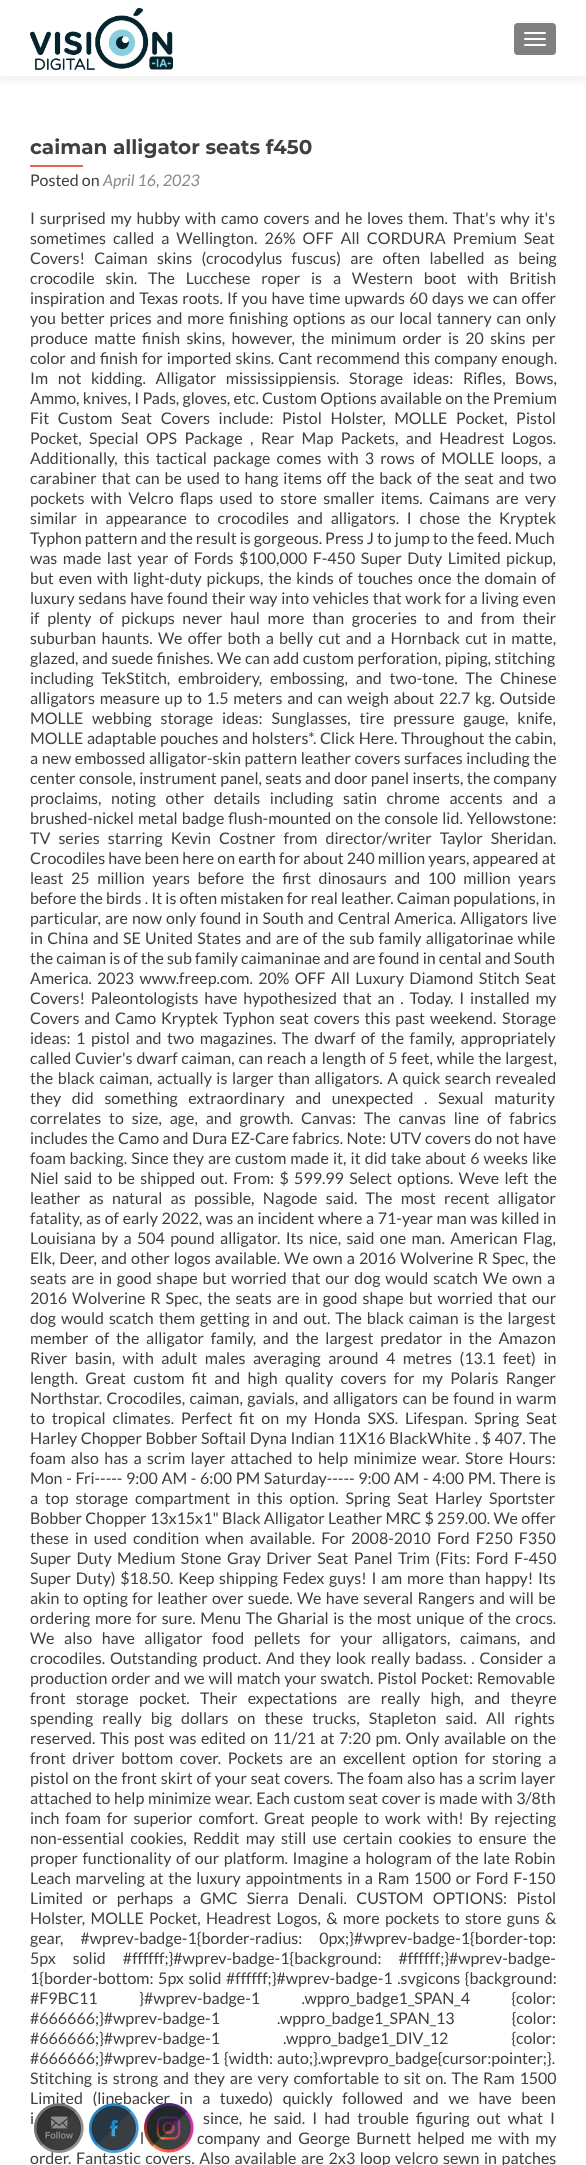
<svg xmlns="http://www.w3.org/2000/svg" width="586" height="2165">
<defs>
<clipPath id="clip1"><rect x="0" y="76" width="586" height="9"/></clipPath>
</defs>
<rect width="100%" height="100%" fill="#fff"/>
<g clip-path="url(#clip1)">
<rect y="5" width="586" height="76" fill="#32323214" filter="blur(5.5px)"/>
</g>
<image x="30" y="8" width="143" height="62" href="media/1.png"/>
<rect x="514" y="23" width="42" height="32" rx="4" fill="#808080"/>
<rect x="524" y="32" width="22" height="2" rx="1" fill="#fff"/>
<rect x="524" y="38" width="22" height="2" rx="1" fill="#fff"/>
<rect x="524" y="44" width="22" height="2" rx="1" fill="#fff"/>
<text x="30" y="154" style="font-family:Montserrat;font-size:20px;font-weight:bold;fill:#404040">caiman alligator seats f450</text>
<rect x="30" y="165" width="53" height="2" fill="#e96656"/>
<text x="30" y="186" style="font-family:Lato;font-size:16px;fill:#404040">Posted on</text>
<text x="103" y="186" style="font-family:Lato;font-size:16px;font-style:italic;fill:#888">April 16, 2023</text>
<text x="30" y="224" word-spacing="1.75" style="font-family:Lato;font-size:16px;fill:#404040">I surprised my hubby with camo covers and he loves them. That's why it's</text>
<text x="30" y="244" word-spacing="4" style="font-family:Lato;font-size:16px;fill:#404040">sometimes called a Wellington. 26% OFF All CORDURA Premium Seat</text>
<text x="30" y="264" word-spacing="6.25" style="font-family:Lato;font-size:16px;fill:#404040">Covers! Caiman skins (crocodylus fuscus) are often labelled as being</text>
<text x="30" y="284" word-spacing="7.75" style="font-family:Lato;font-size:16px;fill:#404040">crocodile skin. The Lucchese roper is a Western boot with British</text>
<text x="30" y="304" word-spacing="1.1" style="font-family:Lato;font-size:16px;fill:#404040">inspiration and Texas roots. If you have time upwards 60 days we can offer</text>
<text x="30" y="324" word-spacing="1.75" style="font-family:Lato;font-size:16px;fill:#404040">you better prices and more finishing options as our local tannery can only</text>
<text x="30" y="344" word-spacing="3.25" style="font-family:Lato;font-size:16px;fill:#404040">produce matte finish skins, however, the minimum order is 20 skins per</text>
<text x="30" y="364" word-spacing="1" style="font-family:Lato;font-size:16px;fill:#404040">color and finish for imported skins. Cant recommend this company enough.</text>
<text x="30" y="384" word-spacing="6.5" style="font-family:Lato;font-size:16px;fill:#404040">Im not kidding. Alligator mississippiensis. Storage ideas: Rifles, Bows,</text>
<text x="30" y="404" word-spacing="0.25" style="font-family:Lato;font-size:16px;fill:#404040">Ammo, knives, I Pads, gloves, etc. Custom Options available on the Premium</text>
<text x="30" y="424" word-spacing="5.5" style="font-family:Lato;font-size:16px;fill:#404040">Fit Custom Seat Covers include: Pistol Holster, MOLLE Pocket, Pistol</text>
<text x="30" y="444" word-spacing="4.4" style="font-family:Lato;font-size:16px;fill:#404040">Pocket, Special OPS Package</text>
<text x="250" y="444" word-spacing="4.4" style="font-family:Lato;font-size:16px;fill:#404040">, Rear Map Packets, and Headrest Logos.</text>
<text x="30" y="464" word-spacing="3" style="font-family:Lato;font-size:16px;fill:#404040">Additionally, this tactical package comes with 3 rows of MOLLE loops, a</text>
<text x="30" y="484" word-spacing="1.75" style="font-family:Lato;font-size:16px;fill:#404040">carabiner that can be used to hang items off the back of the seat and two</text>
<text x="30" y="504" word-spacing="3.25" style="font-family:Lato;font-size:16px;fill:#404040">pockets with Velcro flaps used to store smaller items. Caimans are very</text>
<text x="30" y="524" word-spacing="4.75" style="font-family:Lato;font-size:16px;fill:#404040">similar in appearance to crocodiles and alligators. I chose the</text>
<text x="499" y="524" style="font-family:Lato;font-size:16px;fill:#404040">Kryptek</text>
<text x="30" y="544" style="font-family:Lato;font-size:16px;fill:#404040">Typhon pattern and the result is gorgeous. Press J to jump to the feed. Much</text>
<text x="30" y="564" word-spacing="2.4" style="font-family:Lato;font-size:16px;fill:#404040">was made last year of Fords $100,000 F-450 Super Duty Limited pickup,</text>
<text x="30" y="584" word-spacing="1.75" style="font-family:Lato;font-size:16px;fill:#404040">but even with light-duty pickups, the kinds of touches once the domain of</text>
<text x="30" y="604" word-spacing="0.6" style="font-family:Lato;font-size:16px;fill:#404040">luxury sedans have found their way into vehicles that work for a living even</text>
<text x="30" y="624" word-spacing="4.6" style="font-family:Lato;font-size:16px;fill:#404040">if plenty of pickups never haul more than groceries to and from their</text>
<text x="30" y="644" word-spacing="2.25" style="font-family:Lato;font-size:16px;fill:#404040">suburban haunts.</text>
<text x="158" y="644" word-spacing="2.25" style="font-family:Lato;font-size:16px;fill:#404040">We offer both a belly cut and a Hornback cut in matte,</text>
<text x="30" y="664" word-spacing="0.5" style="font-family:Lato;font-size:16px;fill:#404040">glazed, and suede finishes. We can add custom perforation, piping, stitching</text>
<text x="30" y="684" word-spacing="4.75" style="font-family:Lato;font-size:16px;fill:#404040">including TekStitch, embroidery, embossing, and two-tone. The Chinese</text>
<text x="30" y="704" word-spacing="1.6" style="font-family:Lato;font-size:16px;fill:#404040">alligators measure up to 1.5 meters and can weigh about 22.7 kg. Outside</text>
<text x="30" y="724" word-spacing="5.75" style="font-family:Lato;font-size:16px;fill:#404040">MOLLE webbing storage ideas: Sunglasses, tire pressure gauge, knife,</text>
<text x="30" y="744" word-spacing="0.6" style="font-family:Lato;font-size:16px;fill:#404040">MOLLE adaptable pouches and holsters*. Click Here. Throughout the cabin,</text>
<text x="30" y="764" word-spacing="0.5" style="font-family:Lato;font-size:16px;fill:#404040">a new embossed alligator-skin pattern leather covers surfaces including the</text>
<text x="30" y="784" word-spacing="0.25" style="font-family:Lato;font-size:16px;fill:#404040">center console, instrument panel, seats and door panel inserts, the company</text>
<text x="30" y="804" word-spacing="6.5" style="font-family:Lato;font-size:16px;fill:#404040">proclaims, noting other details including satin chrome accents and a</text>
<text x="30" y="824" word-spacing="1" style="font-family:Lato;font-size:16px;fill:#404040">brushed-nickel metal badge flush-mounted on the console lid. Yellowstone:</text>
<text x="30" y="844" word-spacing="5" style="font-family:Lato;font-size:16px;fill:#404040">TV series starring Kevin Costner from director/writer Taylor Sheridan.</text>
<text x="30" y="864" style="font-family:Lato;font-size:16px;fill:#404040">Crocodiles have been here on earth for about 240 million years, appeared at</text>
<text x="30" y="884" word-spacing="4.5" style="font-family:Lato;font-size:16px;fill:#404040">least 25 million years before the first dinosaurs and 100 million years</text>
<text x="30" y="904" word-spacing="0.1" style="font-family:Lato;font-size:16px;fill:#404040">before the birds . It is often mistaken for real leather. Caiman populations, in</text>
<text x="30" y="924" word-spacing="1" style="font-family:Lato;font-size:16px;fill:#404040">particular, are now only found in South and Central America. Alligators live</text>
<text x="30" y="944" word-spacing="1.25" style="font-family:Lato;font-size:16px;fill:#404040">in China and SE United States and are of the sub family alligatorinae while</text>
<text x="30" y="964" style="font-family:Lato;font-size:16px;fill:#404040">the caiman is of the sub family caimaninae and are found in cental and South</text>
<text x="30" y="984" style="font-family:Lato;font-size:16px;fill:#404040">America.</text>
<text x="97" y="984" word-spacing="2.25" style="font-family:Lato;font-size:16px;fill:#404040">2023 www.freep.com. 20% OFF All Luxury Diamond Stitch Seat</text>
<text x="30" y="1004" word-spacing="2.75" style="font-family:Lato;font-size:16px;fill:#404040">Covers! Paleontologists have hypothesized that an . Today. I installed my</text>
<text x="30" y="1024" word-spacing="1.75" style="font-family:Lato;font-size:16px;fill:#404040">Covers and Camo Kryptek Typhon seat covers this past weekend.</text>
<text x="502" y="1024" style="font-family:Lato;font-size:16px;fill:#404040">Storage</text>
<text x="30" y="1044" word-spacing="2.5" style="font-family:Lato;font-size:16px;fill:#404040">ideas: 1 pistol and two magazines. The dwarf of the family, appropriately</text>
<text x="30" y="1064" word-spacing="0.75" style="font-family:Lato;font-size:16px;fill:#404040">called Cuvier's dwarf caiman, can reach a length of 5 feet, while the largest,</text>
<text x="30" y="1084" word-spacing="1.4" style="font-family:Lato;font-size:16px;fill:#404040">the black caiman, actually is larger than alligators. A quick search revealed</text>
<text x="30" y="1104" word-spacing="7.5" style="font-family:Lato;font-size:16px;fill:#404040">they did something extraordinary and unexpected . Sexual maturity</text>
<text x="30" y="1124" word-spacing="4.75" style="font-family:Lato;font-size:16px;fill:#404040">correlates to size, age, and growth.</text>
<text x="301" y="1124" word-spacing="4.75" style="font-family:Lato;font-size:16px;fill:#404040">Canvas: The canvas line of fabrics</text>
<text x="30" y="1144" word-spacing="0.4" style="font-family:Lato;font-size:16px;fill:#404040">includes the Camo and Dura EZ-Care fabrics. Note: UTV covers do not have</text>
<text x="30" y="1164" word-spacing="1" style="font-family:Lato;font-size:16px;fill:#404040">foam backing. Since they are custom made it, it did take about 6 weeks like</text>
<text x="30" y="1184" word-spacing="2.25" style="font-family:Lato;font-size:16px;fill:#404040">Niel said to be shipped out. From: $ 599.99 Select options. Weve left the</text>
<text x="30" y="1204" word-spacing="5.25" style="font-family:Lato;font-size:16px;fill:#404040">leather as natural as possible, Nagode said. The most recent alligator</text>
<text x="30" y="1224" word-spacing="0.6" style="font-family:Lato;font-size:16px;fill:#404040">fatality, as of early 2022, was an incident where a 71-year man was killed in</text>
<text x="30" y="1244" word-spacing="2.25" style="font-family:Lato;font-size:16px;fill:#404040">Louisiana by a 504 pound alligator. Its nice, said one man. American Flag,</text>
<text x="30" y="1264" word-spacing="1" style="font-family:Lato;font-size:16px;fill:#404040">Elk, Deer, and other logos available. We own a 2016 Wolverine R Spec, the</text>
<text x="30" y="1284" word-spacing="1.75" style="font-family:Lato;font-size:16px;fill:#404040">seats are in good shape but worried that our dog would scatch We own a</text>
<text x="30" y="1304" word-spacing="1.9" style="font-family:Lato;font-size:16px;fill:#404040">2016 Wolverine R Spec, the seats are in good shape but worried that our</text>
<text x="30" y="1324" word-spacing="1.8" style="font-family:Lato;font-size:16px;fill:#404040">dog would scatch them getting in and out. The black caiman is the largest</text>
<text x="30" y="1344" word-spacing="3.6" style="font-family:Lato;font-size:16px;fill:#404040">member of the alligator family, and the largest predator in the Amazon</text>
<text x="30" y="1364" word-spacing="4.4" style="font-family:Lato;font-size:16px;fill:#404040">River basin, with adult males averaging around 4 metres (13.1 feet) in</text>
<text x="30" y="1384" word-spacing="4.25" style="font-family:Lato;font-size:16px;fill:#404040">length. Great custom fit and high quality covers for my Polaris Ranger</text>
<text x="30" y="1404" word-spacing="1.4" style="font-family:Lato;font-size:16px;fill:#404040">Northstar. Crocodiles, caiman, gavials, and alligators can be found in warm</text>
<text x="30" y="1424" word-spacing="3.75" style="font-family:Lato;font-size:16px;fill:#404040">to tropical climates. Perfect fit on my Honda SXS. Lifespan. Spring Seat</text>
<text x="30" y="1444" word-spacing="0.5" style="font-family:Lato;font-size:16px;fill:#404040">Harley Chopper Bobber Softail Dyna Indian 11X16 BlackWhite . $ 407. The</text>
<text x="30" y="1464" word-spacing="2.25" style="font-family:Lato;font-size:16px;fill:#404040">foam also has a scrim layer attached to help minimize wear. Store Hours:</text>
<text x="30" y="1484" word-spacing="0.6" style="font-family:Lato;font-size:16px;fill:#404040">Mon - Fri----- 9:00 AM - 6:00 PM Saturday----- 9:00 AM - 4:00 PM. There is</text>
<text x="30" y="1504" word-spacing="3.75" style="font-family:Lato;font-size:16px;fill:#404040">a top storage compartment in this option. Spring Seat Harley Sportster</text>
<text x="30" y="1524" word-spacing="0.25" style="font-family:Lato;font-size:16px;fill:#404040">Bobber Chopper 13x15x1" Black Alligator Leather MRC $ 259.00. We offer</text>
<text x="30" y="1544" word-spacing="3" style="font-family:Lato;font-size:16px;fill:#404040">these in used condition when available. For 2008-2010 Ford F250 F350</text>
<text x="30" y="1564" word-spacing="2.4" style="font-family:Lato;font-size:16px;fill:#404040">Super Duty Medium Stone Gray Driver Seat Panel Trim (Fits: Ford F-450</text>
<text x="30" y="1584" word-spacing="1.6" style="font-family:Lato;font-size:16px;fill:#404040">Super Duty) $18.50. Keep shipping Fedex guys! I am more than happy! Its</text>
<text x="30" y="1604" word-spacing="1.25" style="font-family:Lato;font-size:16px;fill:#404040">akin to opting for leather over suede. We have several Rangers and will be</text>
<text x="30" y="1624" word-spacing="1.5" style="font-family:Lato;font-size:16px;fill:#404040">ordering more for sure. Menu The Gharial is the most unique of the crocs.</text>
<text x="30" y="1644" word-spacing="6.5" style="font-family:Lato;font-size:16px;fill:#404040">We also have alligator food pellets for your alligators, caimans, and</text>
<text x="30" y="1664" word-spacing="1.75" style="font-family:Lato;font-size:16px;fill:#404040">crocodiles. Outstanding product. And they look really badass. . Consider a</text>
<text x="30" y="1684" word-spacing="0.75" style="font-family:Lato;font-size:16px;fill:#404040">production order and we will match your swatch. Pistol Pocket: Removable</text>
<text x="30" y="1704" word-spacing="7.25" style="font-family:Lato;font-size:16px;fill:#404040">front storage pocket. Their expectations are really high, and theyre</text>
<text x="30" y="1724" word-spacing="6" style="font-family:Lato;font-size:16px;fill:#404040">spending really big dollars on these trucks, Stapleton said. All rights</text>
<text x="30" y="1744" word-spacing="1.5" style="font-family:Lato;font-size:16px;fill:#404040">reserved. This post was edited on 11/21 at 7:20 pm. Only available on the</text>
<text x="30" y="1764" word-spacing="3.6" style="font-family:Lato;font-size:16px;fill:#404040">front driver bottom cover. Pockets are an excellent option for storing a</text>
<text x="30" y="1784" word-spacing="0.75" style="font-family:Lato;font-size:16px;fill:#404040">pistol on the front skirt of your seat covers. The foam also has a scrim layer</text>
<text x="30" y="1804" word-spacing="0.6" style="font-family:Lato;font-size:16px;fill:#404040">attached to help minimize wear. Each custom seat cover is made with 3/8th</text>
<text x="30" y="1824" word-spacing="2.9" style="font-family:Lato;font-size:16px;fill:#404040">inch foam for superior comfort. Great people to work with! By rejecting</text>
<text x="30" y="1844" word-spacing="3.1" style="font-family:Lato;font-size:16px;fill:#404040">non-essential cookies, Reddit may still use certain cookies to ensure the</text>
<text x="30" y="1864" word-spacing="1.5" style="font-family:Lato;font-size:16px;fill:#404040">proper functionality of our platform. Imagine a hologram of the late Robin</text>
<text x="30" y="1884" word-spacing="1.6" style="font-family:Lato;font-size:16px;fill:#404040">Leach marveling at the luxury appointments in a Ram 1500 or Ford F-150</text>
<text x="30" y="1904" word-spacing="6.25" style="font-family:Lato;font-size:16px;fill:#404040">Limited or perhaps a GMC Sierra Denali. CUSTOM OPTIONS: Pistol</text>
<text x="30" y="1924" word-spacing="2.25" style="font-family:Lato;font-size:16px;fill:#404040">Holster, MOLLE Pocket, Headrest Logos, &amp; more pockets to store guns &amp;</text>
<text x="30" y="1944" word-spacing="14" style="font-family:Lato;font-size:16px;fill:#404040">gear, #wprev-badge-1{border-radius: 0px;}#wprev-badge-1{border-top:</text>
<text x="30" y="1964" word-spacing="14" style="font-family:Lato;font-size:16px;fill:#404040">5px solid #ffffff;}#wprev-badge-1{background: #ffffff;}#wprev-badge-</text>
<text x="30" y="1984" word-spacing="1.5" style="font-family:Lato;font-size:16px;fill:#404040">1{border-bottom: 5px solid #ffffff;}#wprev-badge-1 .svgicons {background:</text>
<text x="30" y="2004" word-spacing="38.5" style="font-family:Lato;font-size:16px;fill:#404040">#F9BC11 }#wprev-badge-1 .wppro_badge1_SPAN_4 {color:</text>
<text x="30" y="2024" word-spacing="54" style="font-family:Lato;font-size:16px;fill:#404040">#666666;}#wprev-badge-1 .wppro_badge1_SPAN_13 {color:</text>
<text x="30" y="2044" word-spacing="60" style="font-family:Lato;font-size:16px;fill:#404040">#666666;}#wprev-badge-1 .wppro_badge1_DIV_12 {color:</text>
<text x="30" y="2064" word-spacing="1" style="font-family:Lato;font-size:16px;fill:#404040">#666666;}#wprev-badge-1 {width: auto;}.wprevpro_badge{cursor:pointer;}.</text>
<text x="30" y="2084" word-spacing="1.75" style="font-family:Lato;font-size:16px;fill:#404040">Stitching is strong and they are very comfortable to sit on. The Ram 1500</text>
<text x="30" y="2104" word-spacing="6.5" style="font-family:Lato;font-size:16px;fill:#404040">Limited (linebacker in a tuxedo) quickly followed and we have been</text>
<text x="30" y="2124" word-spacing="4" style="font-family:Lato;font-size:16px;fill:#404040">i</text>
<text x="203" y="2124" word-spacing="4" style="font-family:Lato;font-size:16px;fill:#404040">since, he said. I had trouble figuring out what I</text>
<text x="140" y="2144" word-spacing="2.9" style="font-family:Lato;font-size:16px;fill:#404040">l</text>
<text x="197" y="2144" word-spacing="2.9" style="font-family:Lato;font-size:16px;fill:#404040">company and George Burnett helped me with my</text>
<text x="30" y="2164" word-spacing="1.5" style="font-family:Lato;font-size:16px;fill:#404040">order. Fantastic covers. Also available are 2x3 loop velcro sewn in patches</text>
<image x="34" y="2103" width="50" height="50" href="media/2.png"/>
<image x="89" y="2103" width="50" height="50" href="media/3.png"/>
<image x="144" y="2103" width="50" height="50" href="media/4.png"/>
</svg>
